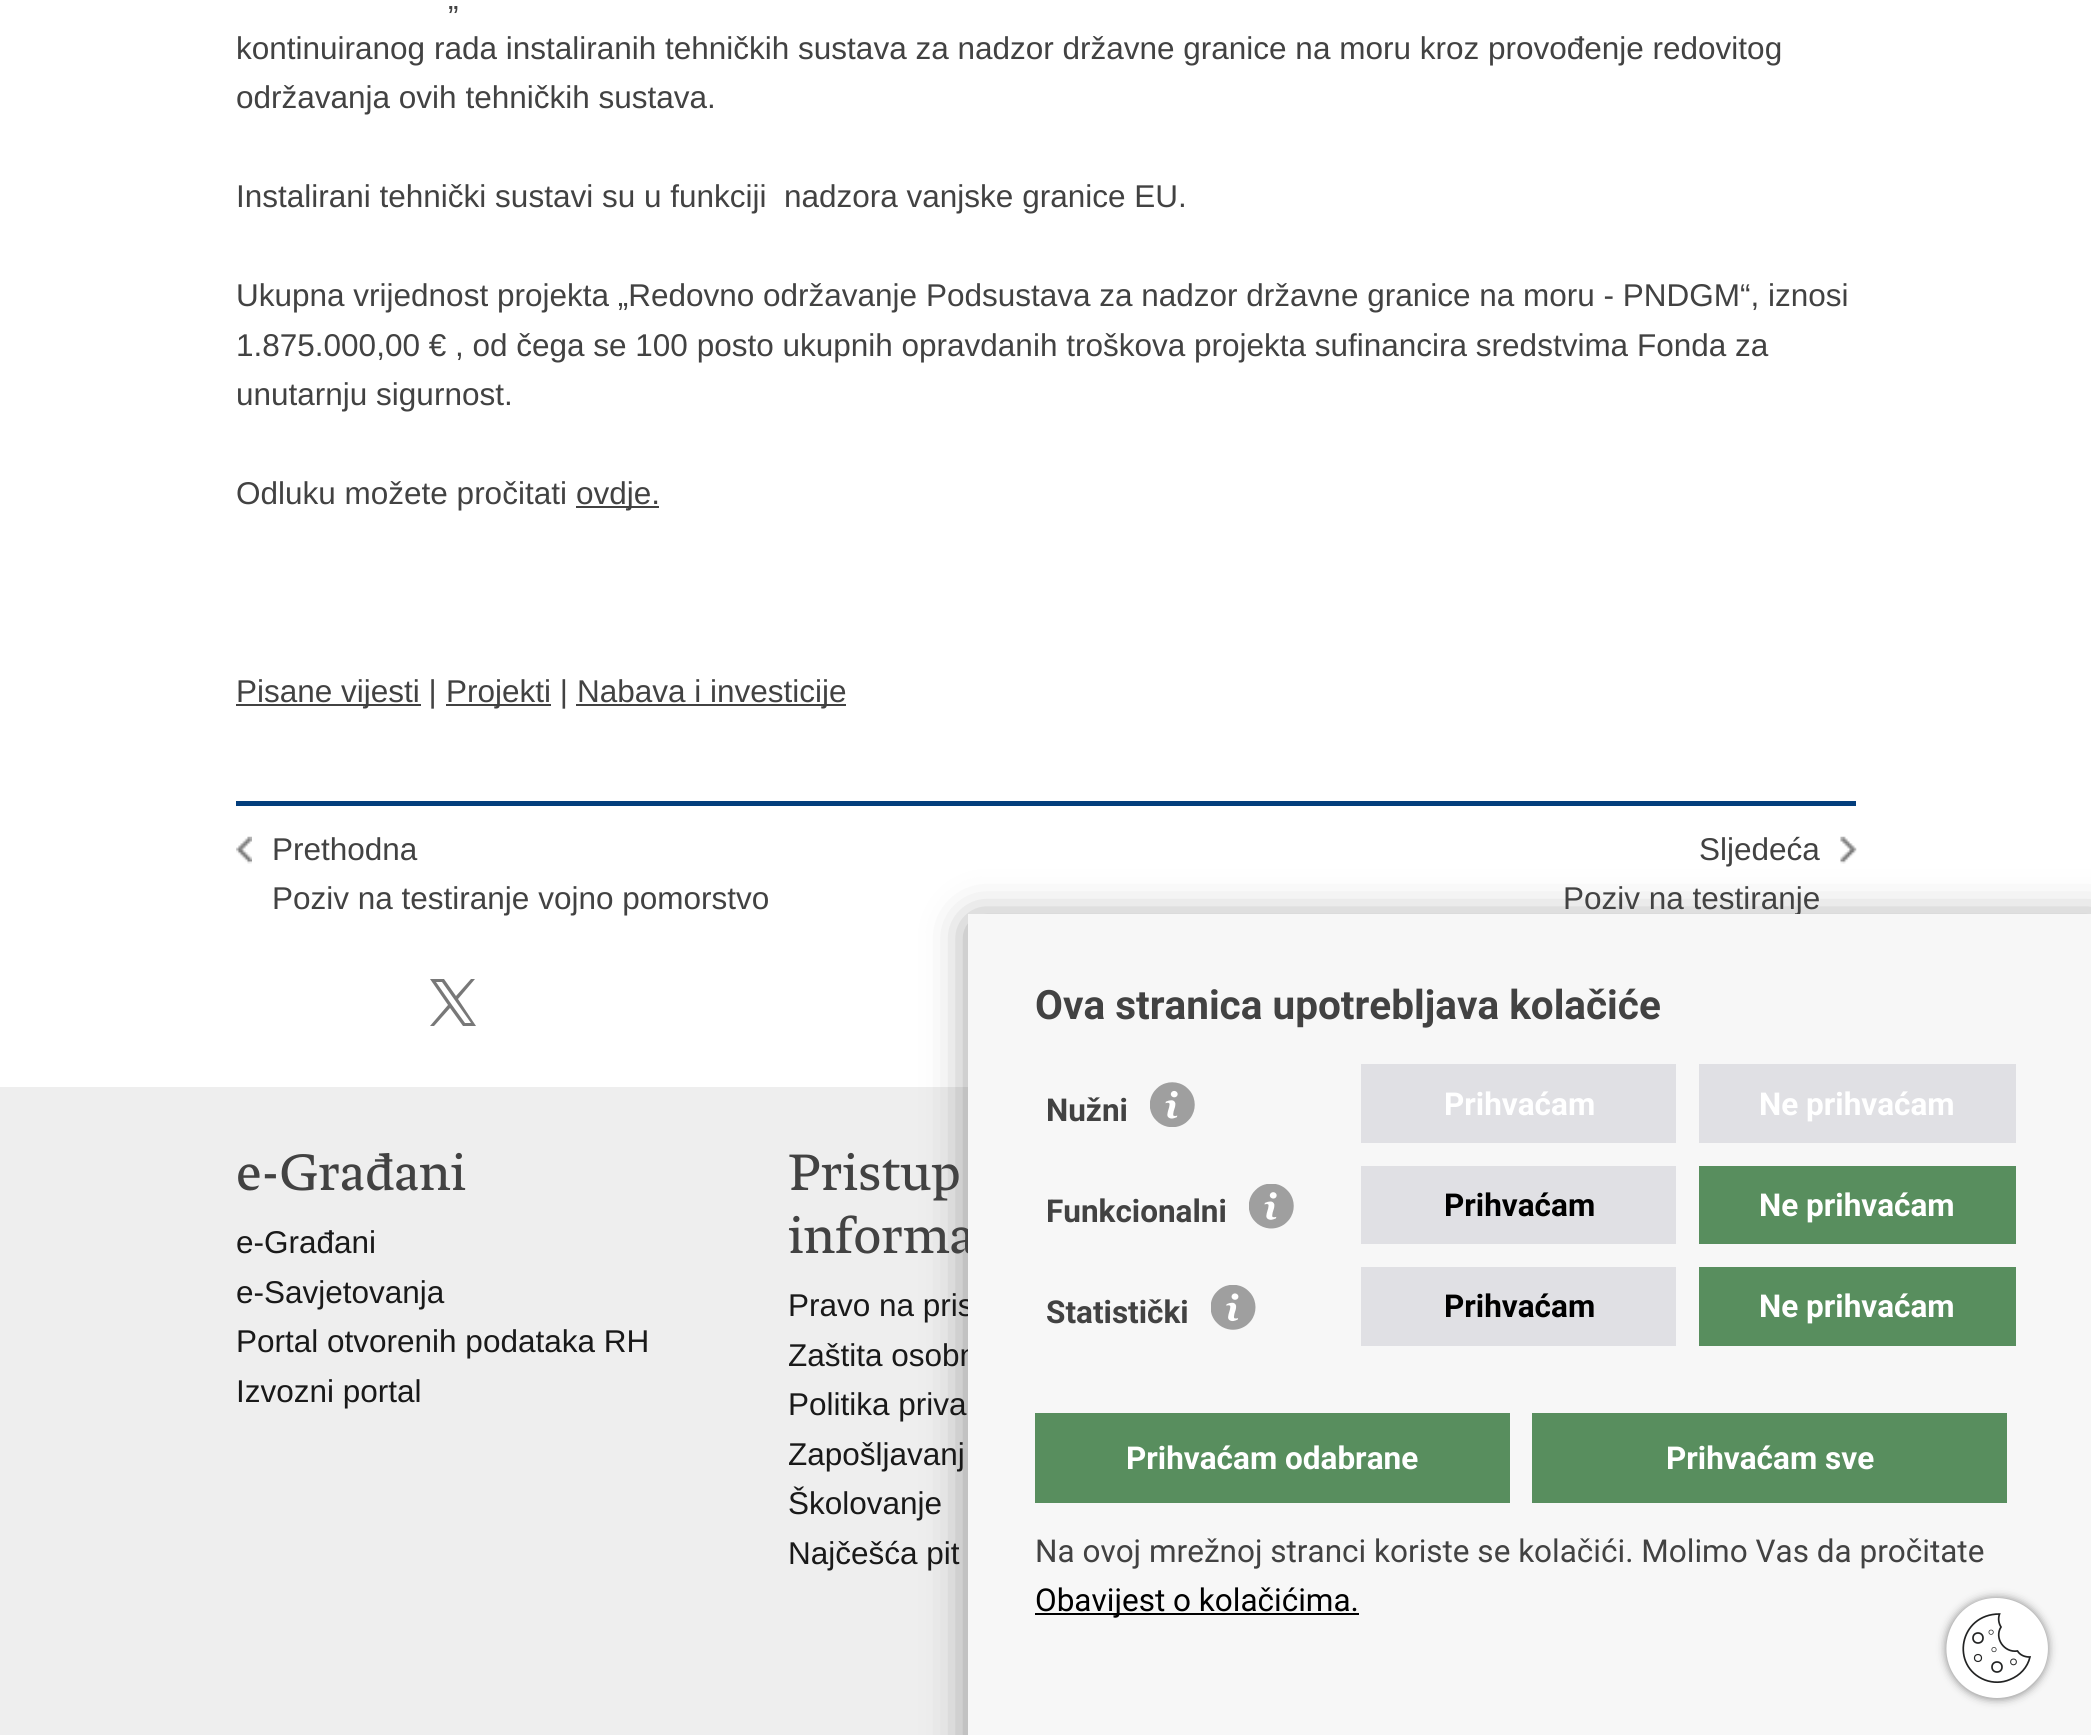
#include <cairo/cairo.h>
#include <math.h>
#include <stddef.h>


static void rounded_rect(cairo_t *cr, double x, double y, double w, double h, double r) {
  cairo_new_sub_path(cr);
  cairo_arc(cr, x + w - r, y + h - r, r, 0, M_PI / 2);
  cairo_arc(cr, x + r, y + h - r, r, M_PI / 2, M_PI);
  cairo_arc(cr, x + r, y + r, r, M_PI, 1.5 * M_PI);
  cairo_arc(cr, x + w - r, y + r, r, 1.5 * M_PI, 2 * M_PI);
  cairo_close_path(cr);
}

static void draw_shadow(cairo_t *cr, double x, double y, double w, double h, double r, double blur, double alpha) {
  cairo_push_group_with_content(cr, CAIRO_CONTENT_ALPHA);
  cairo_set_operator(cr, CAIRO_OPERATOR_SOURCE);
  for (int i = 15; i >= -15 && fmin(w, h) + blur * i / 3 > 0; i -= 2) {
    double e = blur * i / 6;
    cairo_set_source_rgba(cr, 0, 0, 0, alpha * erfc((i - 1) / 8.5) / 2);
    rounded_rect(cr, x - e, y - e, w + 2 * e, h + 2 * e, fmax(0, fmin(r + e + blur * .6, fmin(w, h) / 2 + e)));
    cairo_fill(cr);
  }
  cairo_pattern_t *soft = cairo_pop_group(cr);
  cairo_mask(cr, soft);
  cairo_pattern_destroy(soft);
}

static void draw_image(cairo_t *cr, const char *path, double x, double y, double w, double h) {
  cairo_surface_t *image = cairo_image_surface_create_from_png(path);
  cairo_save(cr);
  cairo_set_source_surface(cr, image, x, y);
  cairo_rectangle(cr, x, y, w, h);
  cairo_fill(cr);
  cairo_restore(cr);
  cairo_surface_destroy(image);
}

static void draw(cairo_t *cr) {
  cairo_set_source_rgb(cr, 1, 1, 1);
  cairo_paint(cr);
  cairo_set_source_rgb(cr, 66 / 255.0, 66 / 255.0, 66 / 255.0);
  cairo_rectangle(cr, 576, 506, 83, 2);
  cairo_fill(cr);
  cairo_rectangle(cr, 236, 704, 185, 2);
  cairo_fill(cr);
  cairo_rectangle(cr, 446, 704, 105, 2);
  cairo_fill(cr);
  cairo_rectangle(cr, 576, 704, 270, 2);
  cairo_fill(cr);
  cairo_set_source_rgb(cr, 3 / 255.0, 62 / 255.0, 124 / 255.0);
  cairo_rectangle(cr, 236, 801, 1620, 5);
  cairo_fill(cr);
  draw_image(cr, "images/1.png", 236, 836, 16, 28);
  draw_image(cr, "images/2.png", 1840, 836, 17, 28);
  cairo_set_source_rgb(cr, 120 / 255.0, 120 / 255.0, 120 / 255.0);
  cairo_new_path(cr);
  cairo_move_to(cr, 458, 999);
  cairo_line_to(cr, 475, 979);
  cairo_line_to(cr, 471, 979);
  cairo_line_to(cr, 456, 996);
  cairo_line_to(cr, 444, 979);
  cairo_line_to(cr, 430, 979);
  cairo_line_to(cr, 448, 1005);
  cairo_line_to(cr, 430, 1026);
  cairo_line_to(cr, 434, 1026);
  cairo_line_to(cr, 450, 1008);
  cairo_line_to(cr, 463, 1026);
  cairo_line_to(cr, 476, 1026);
  cairo_close_path(cr);
  cairo_move_to(cr, 452, 1005);
  cairo_line_to(cr, 436, 982);
  cairo_line_to(cr, 442, 982);
  cairo_line_to(cr, 471, 1023);
  cairo_line_to(cr, 465, 1023);
  cairo_close_path(cr);
  cairo_fill(cr);
  cairo_set_source_rgb(cr, 238 / 255.0, 238 / 255.0, 238 / 255.0);
  cairo_rectangle(cr, 0, 1087, 968, 648);
  cairo_fill(cr);
  cairo_set_source_rgb(cr, 0, 0, 0);
  draw_shadow(cr, 974, 925, 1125, 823, 0, 22.5, 0.5);
  cairo_select_font_face(cr, "Liberation Sans", CAIRO_FONT_SLANT_NORMAL, CAIRO_FONT_WEIGHT_NORMAL);
  cairo_set_font_size(cr, 31.5);
  cairo_set_source_rgb(cr, 66 / 255.0, 66 / 255.0, 66 / 255.0);
  cairo_move_to(cr, 448, 9);
  cairo_show_text(cr, "„");
  cairo_move_to(cr, 236, 59);
  cairo_show_text(cr, "kontinuiranog rada instaliranih tehničkih sustava za nadzor državne granice na moru kroz provođenje redovitog");
  cairo_move_to(cr, 236, 108);
  cairo_show_text(cr, "održavanja ovih tehničkih sustava.");
  cairo_move_to(cr, 236, 207);
  cairo_show_text(cr, "Instalirani tehnički sustavi su u funkciji  nadzora vanjske granice EU.");
  cairo_move_to(cr, 236, 306);
  cairo_show_text(cr, "Ukupna vrijednost projekta „Redovno održavanje Podsustava za nadzor državne granice na moru - PNDGM“, iznosi");
  cairo_move_to(cr, 236, 356);
  cairo_show_text(cr, "1.875.000,00 € , od čega se 100 posto ukupnih opravdanih troškova projekta sufinancira sredstvima Fonda za");
  cairo_move_to(cr, 236, 405);
  cairo_show_text(cr, "unutarnju sigurnost.");
  cairo_move_to(cr, 236, 504);
  cairo_show_text(cr, "Odluku možete pročitati");
  cairo_move_to(cr, 576, 504);
  cairo_show_text(cr, "ovdje.");
  cairo_move_to(cr, 236, 702);
  cairo_show_text(cr, "Pisane vijesti |");
  cairo_move_to(cr, 446, 702);
  cairo_show_text(cr, "Projekti |");
  cairo_move_to(cr, 577, 702);
  cairo_show_text(cr, "Nabava i investicije");
  cairo_move_to(cr, 272, 860);
  cairo_show_text(cr, "Prethodna");
  cairo_move_to(cr, 272, 909);
  cairo_show_text(cr, "Poziv na testiranje vojno pomorstvo");
  cairo_move_to(cr, 1699, 860);
  cairo_show_text(cr, "Sljedeća");
  cairo_move_to(cr, 1563, 909);
  cairo_show_text(cr, "Poziv na testiranje");
  cairo_select_font_face(cr, "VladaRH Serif", CAIRO_FONT_SLANT_NORMAL, CAIRO_FONT_WEIGHT_NORMAL);
  cairo_set_font_size(cr, 54);
  cairo_move_to(cr, 236, 1190);
  cairo_show_text(cr, "e-Građani");
  cairo_select_font_face(cr, "Liberation Sans", CAIRO_FONT_SLANT_NORMAL, CAIRO_FONT_WEIGHT_NORMAL);
  cairo_set_font_size(cr, 31.5);
  cairo_set_source_rgb(cr, 25 / 255.0, 25 / 255.0, 25 / 255.0);
  cairo_move_to(cr, 236, 1253);
  cairo_show_text(cr, "e-Građani");
  cairo_move_to(cr, 236, 1303);
  cairo_show_text(cr, "e-Savjetovanja");
  cairo_move_to(cr, 236, 1352);
  cairo_show_text(cr, "Portal otvorenih podataka RH");
  cairo_move_to(cr, 236, 1402);
  cairo_show_text(cr, "Izvozni portal");
  cairo_select_font_face(cr, "VladaRH Serif", CAIRO_FONT_SLANT_NORMAL, CAIRO_FONT_WEIGHT_NORMAL);
  cairo_set_font_size(cr, 54);
  cairo_set_source_rgb(cr, 66 / 255.0, 66 / 255.0, 66 / 255.0);
  cairo_move_to(cr, 788, 1190);
  cairo_show_text(cr, "Pristup");
  cairo_move_to(cr, 788, 1253);
  cairo_show_text(cr, "informa");
  cairo_select_font_face(cr, "Liberation Sans", CAIRO_FONT_SLANT_NORMAL, CAIRO_FONT_WEIGHT_NORMAL);
  cairo_set_font_size(cr, 31.5);
  cairo_set_source_rgb(cr, 25 / 255.0, 25 / 255.0, 25 / 255.0);
  cairo_move_to(cr, 788, 1316);
  cairo_show_text(cr, "Pravo na pris");
  cairo_move_to(cr, 788, 1366);
  cairo_show_text(cr, "Zaštita osobn");
  cairo_move_to(cr, 788, 1415);
  cairo_show_text(cr, "Politika priva");
  cairo_move_to(cr, 788, 1465);
  cairo_show_text(cr, "Zapošljavanj");
  cairo_move_to(cr, 788, 1514);
  cairo_show_text(cr, "Školovanje");
  cairo_move_to(cr, 788, 1564);
  cairo_show_text(cr, "Najčešća pit");
  cairo_set_source_rgb(cr, 247 / 255.0, 247 / 255.0, 247 / 255.0);
  cairo_rectangle(cr, 968, 914, 1123, 821);
  cairo_fill(cr);
  cairo_select_font_face(cr, "Roboto", CAIRO_FONT_SLANT_NORMAL, CAIRO_FONT_WEIGHT_BOLD);
  cairo_set_font_size(cr, 40.5);
  cairo_set_source_rgb(cr, 66 / 255.0, 66 / 255.0, 66 / 255.0);
  cairo_move_to(cr, 1035, 1019);
  cairo_show_text(cr, "Ova stranica upotrebljava kolačiće");
  cairo_set_font_size(cr, 31.5);
  cairo_move_to(cr, 1046, 1121);
  cairo_show_text(cr, "Nužni");
  draw_image(cr, "images/3.png", 1150, 1082, 45, 45);
  cairo_set_source_rgb(cr, 224 / 255.0, 224 / 255.0, 228 / 255.0);
  cairo_rectangle(cr, 1361, 1064, 315, 79);
  cairo_fill(cr);
  cairo_set_source_rgb(cr, 1, 1, 1);
  cairo_move_to(cr, 1444, 1115);
  cairo_show_text(cr, "Prihvaćam");
  cairo_set_source_rgb(cr, 224 / 255.0, 224 / 255.0, 228 / 255.0);
  cairo_rectangle(cr, 1699, 1064, 317, 79);
  cairo_fill(cr);
  cairo_set_source_rgb(cr, 1, 1, 1);
  cairo_move_to(cr, 1759, 1115);
  cairo_show_text(cr, "Ne prihvaćam");
  cairo_set_source_rgb(cr, 66 / 255.0, 66 / 255.0, 66 / 255.0);
  cairo_move_to(cr, 1046, 1222);
  cairo_show_text(cr, "Funkcionalni");
  draw_image(cr, "images/4.png", 1249, 1184, 45, 45);
  cairo_set_source_rgb(cr, 224 / 255.0, 224 / 255.0, 228 / 255.0);
  cairo_rectangle(cr, 1361, 1166, 315, 78);
  cairo_fill(cr);
  cairo_set_source_rgb(cr, 0, 0, 0);
  cairo_move_to(cr, 1444, 1216);
  cairo_show_text(cr, "Prihvaćam");
  cairo_set_source_rgb(cr, 88 / 255.0, 142 / 255.0, 94 / 255.0);
  cairo_rectangle(cr, 1699, 1166, 317, 78);
  cairo_fill(cr);
  cairo_set_source_rgb(cr, 1, 1, 1);
  cairo_move_to(cr, 1759, 1216);
  cairo_show_text(cr, "Ne prihvaćam");
  cairo_set_source_rgb(cr, 66 / 255.0, 66 / 255.0, 66 / 255.0);
  cairo_move_to(cr, 1046, 1323);
  cairo_show_text(cr, "Statistički");
  draw_image(cr, "images/5.png", 1211, 1285, 45, 45);
  cairo_set_source_rgb(cr, 224 / 255.0, 224 / 255.0, 228 / 255.0);
  cairo_rectangle(cr, 1361, 1267, 315, 79);
  cairo_fill(cr);
  cairo_set_source_rgb(cr, 0, 0, 0);
  cairo_move_to(cr, 1444, 1317);
  cairo_show_text(cr, "Prihvaćam");
  cairo_set_source_rgb(cr, 88 / 255.0, 142 / 255.0, 94 / 255.0);
  cairo_rectangle(cr, 1699, 1267, 317, 79);
  cairo_fill(cr);
  cairo_set_source_rgb(cr, 1, 1, 1);
  cairo_move_to(cr, 1759, 1317);
  cairo_show_text(cr, "Ne prihvaćam");
  cairo_set_source_rgb(cr, 88 / 255.0, 142 / 255.0, 94 / 255.0);
  cairo_rectangle(cr, 1035, 1413, 475, 90);
  cairo_fill(cr);
  cairo_set_source_rgb(cr, 1, 1, 1);
  cairo_move_to(cr, 1126, 1469);
  cairo_show_text(cr, "Prihvaćam odabrane");
  cairo_set_source_rgb(cr, 88 / 255.0, 142 / 255.0, 94 / 255.0);
  cairo_rectangle(cr, 1532, 1413, 475, 90);
  cairo_fill(cr);
  cairo_set_source_rgb(cr, 1, 1, 1);
  cairo_move_to(cr, 1666, 1469);
  cairo_show_text(cr, "Prihvaćam sve");
  cairo_select_font_face(cr, "Roboto", CAIRO_FONT_SLANT_NORMAL, CAIRO_FONT_WEIGHT_NORMAL);
  cairo_set_source_rgb(cr, 66 / 255.0, 66 / 255.0, 66 / 255.0);
  cairo_move_to(cr, 1035, 1562);
  cairo_show_text(cr, "Na ovoj mrežnoj stranci koriste se kolačići. Molimo Vas da pročitate");
  cairo_set_source_rgb(cr, 0, 0, 0);
  cairo_rectangle(cr, 1035, 1613, 324, 2);
  cairo_fill(cr);
  cairo_move_to(cr, 1035, 1611);
  cairo_show_text(cr, "Obavijest o kolačićima.");
  cairo_set_source_rgb(cr, 133 / 255.0, 133 / 255.0, 133 / 255.0);
  draw_shadow(cr, 1946, 1598, 102, 101, 50.5, 4.5, 1);
  cairo_set_source_rgb(cr, 1, 1, 1);
  cairo_new_path(cr);
  cairo_move_to(cr, 1996, 1598);
  cairo_curve_to(cr, 2033, 1598, 2058, 1634, 2044, 1668);
  cairo_curve_to(cr, 2040, 1677, 2033, 1684, 2025, 1690);
  cairo_curve_to(cr, 2017, 1695, 2007, 1698, 1997, 1698);
  cairo_curve_to(cr, 1987, 1698, 1977, 1695, 1969, 1690);
  cairo_curve_to(cr, 1927, 1662, 1948, 1598, 1996, 1598);
  cairo_close_path(cr);
  cairo_fill(cr);
  cairo_new_path(cr);
  cairo_move_to(cr, 2029.5, 1657);
  cairo_curve_to(cr, 2024.5, 1657, 2020, 1655, 2017.5, 1651);
  cairo_curve_to(cr, 2004, 1653, 1994, 1638, 2001, 1627);
  cairo_curve_to(cr, 1998.5, 1623, 1998, 1618.5, 1999.5, 1614);
  cairo_curve_to(cr, 1959, 1614, 1950, 1666.5, 1985, 1680);
  cairo_curve_to(cr, 1993, 1683, 2002, 1683, 2010, 1679.5);
  cairo_curve_to(cr, 2020, 1675.5, 2027.5, 1667.5, 2030, 1657);
  cairo_close_path(cr);
  cairo_set_source_rgb(cr, 34 / 255.0, 35 / 255.0, 35 / 255.0);
  cairo_set_line_width(cr, 1.7);
  cairo_stroke(cr);
  cairo_arc(cr, 1978, 1638, 5, 0, 2 * M_PI);
  cairo_stroke(cr);
  cairo_arc(cr, 1997, 1667, 5, 0, 2 * M_PI);
  cairo_stroke(cr);
  cairo_arc(cr, 1978, 1658, 3.5, 0, 2 * M_PI);
  cairo_set_line_width(cr, 1.2);
  cairo_stroke(cr);
  cairo_arc(cr, 2013.5, 1661.9, 2.9, 0, 2 * M_PI);
  cairo_set_line_width(cr, 1);
  cairo_stroke(cr);
  cairo_arc(cr, 1994, 1649.6, 2.2, 0, 2 * M_PI);
  cairo_set_line_width(cr, 0.7);
  cairo_stroke(cr);
  cairo_arc(cr, 1991.1, 1632.2, 2.2, 0, 2 * M_PI);
  cairo_stroke(cr);
}

int main(void) {
  cairo_surface_t *surface = cairo_image_surface_create(CAIRO_FORMAT_RGB24, 2091, 1735);
  cairo_t *cr = cairo_create(surface);
  cairo_font_options_t *options = cairo_font_options_create();
  cairo_font_options_set_hint_metrics(options, CAIRO_HINT_METRICS_OFF);
  cairo_font_options_set_hint_style(options, CAIRO_HINT_STYLE_NONE);
  cairo_set_font_options(cr, options);
  cairo_set_miter_limit(cr, 4);
  draw(cr);
  cairo_surface_write_to_png(surface, "out.png");
  cairo_font_options_destroy(options);
  cairo_destroy(cr);
  cairo_surface_destroy(surface);
  return 0;
}
